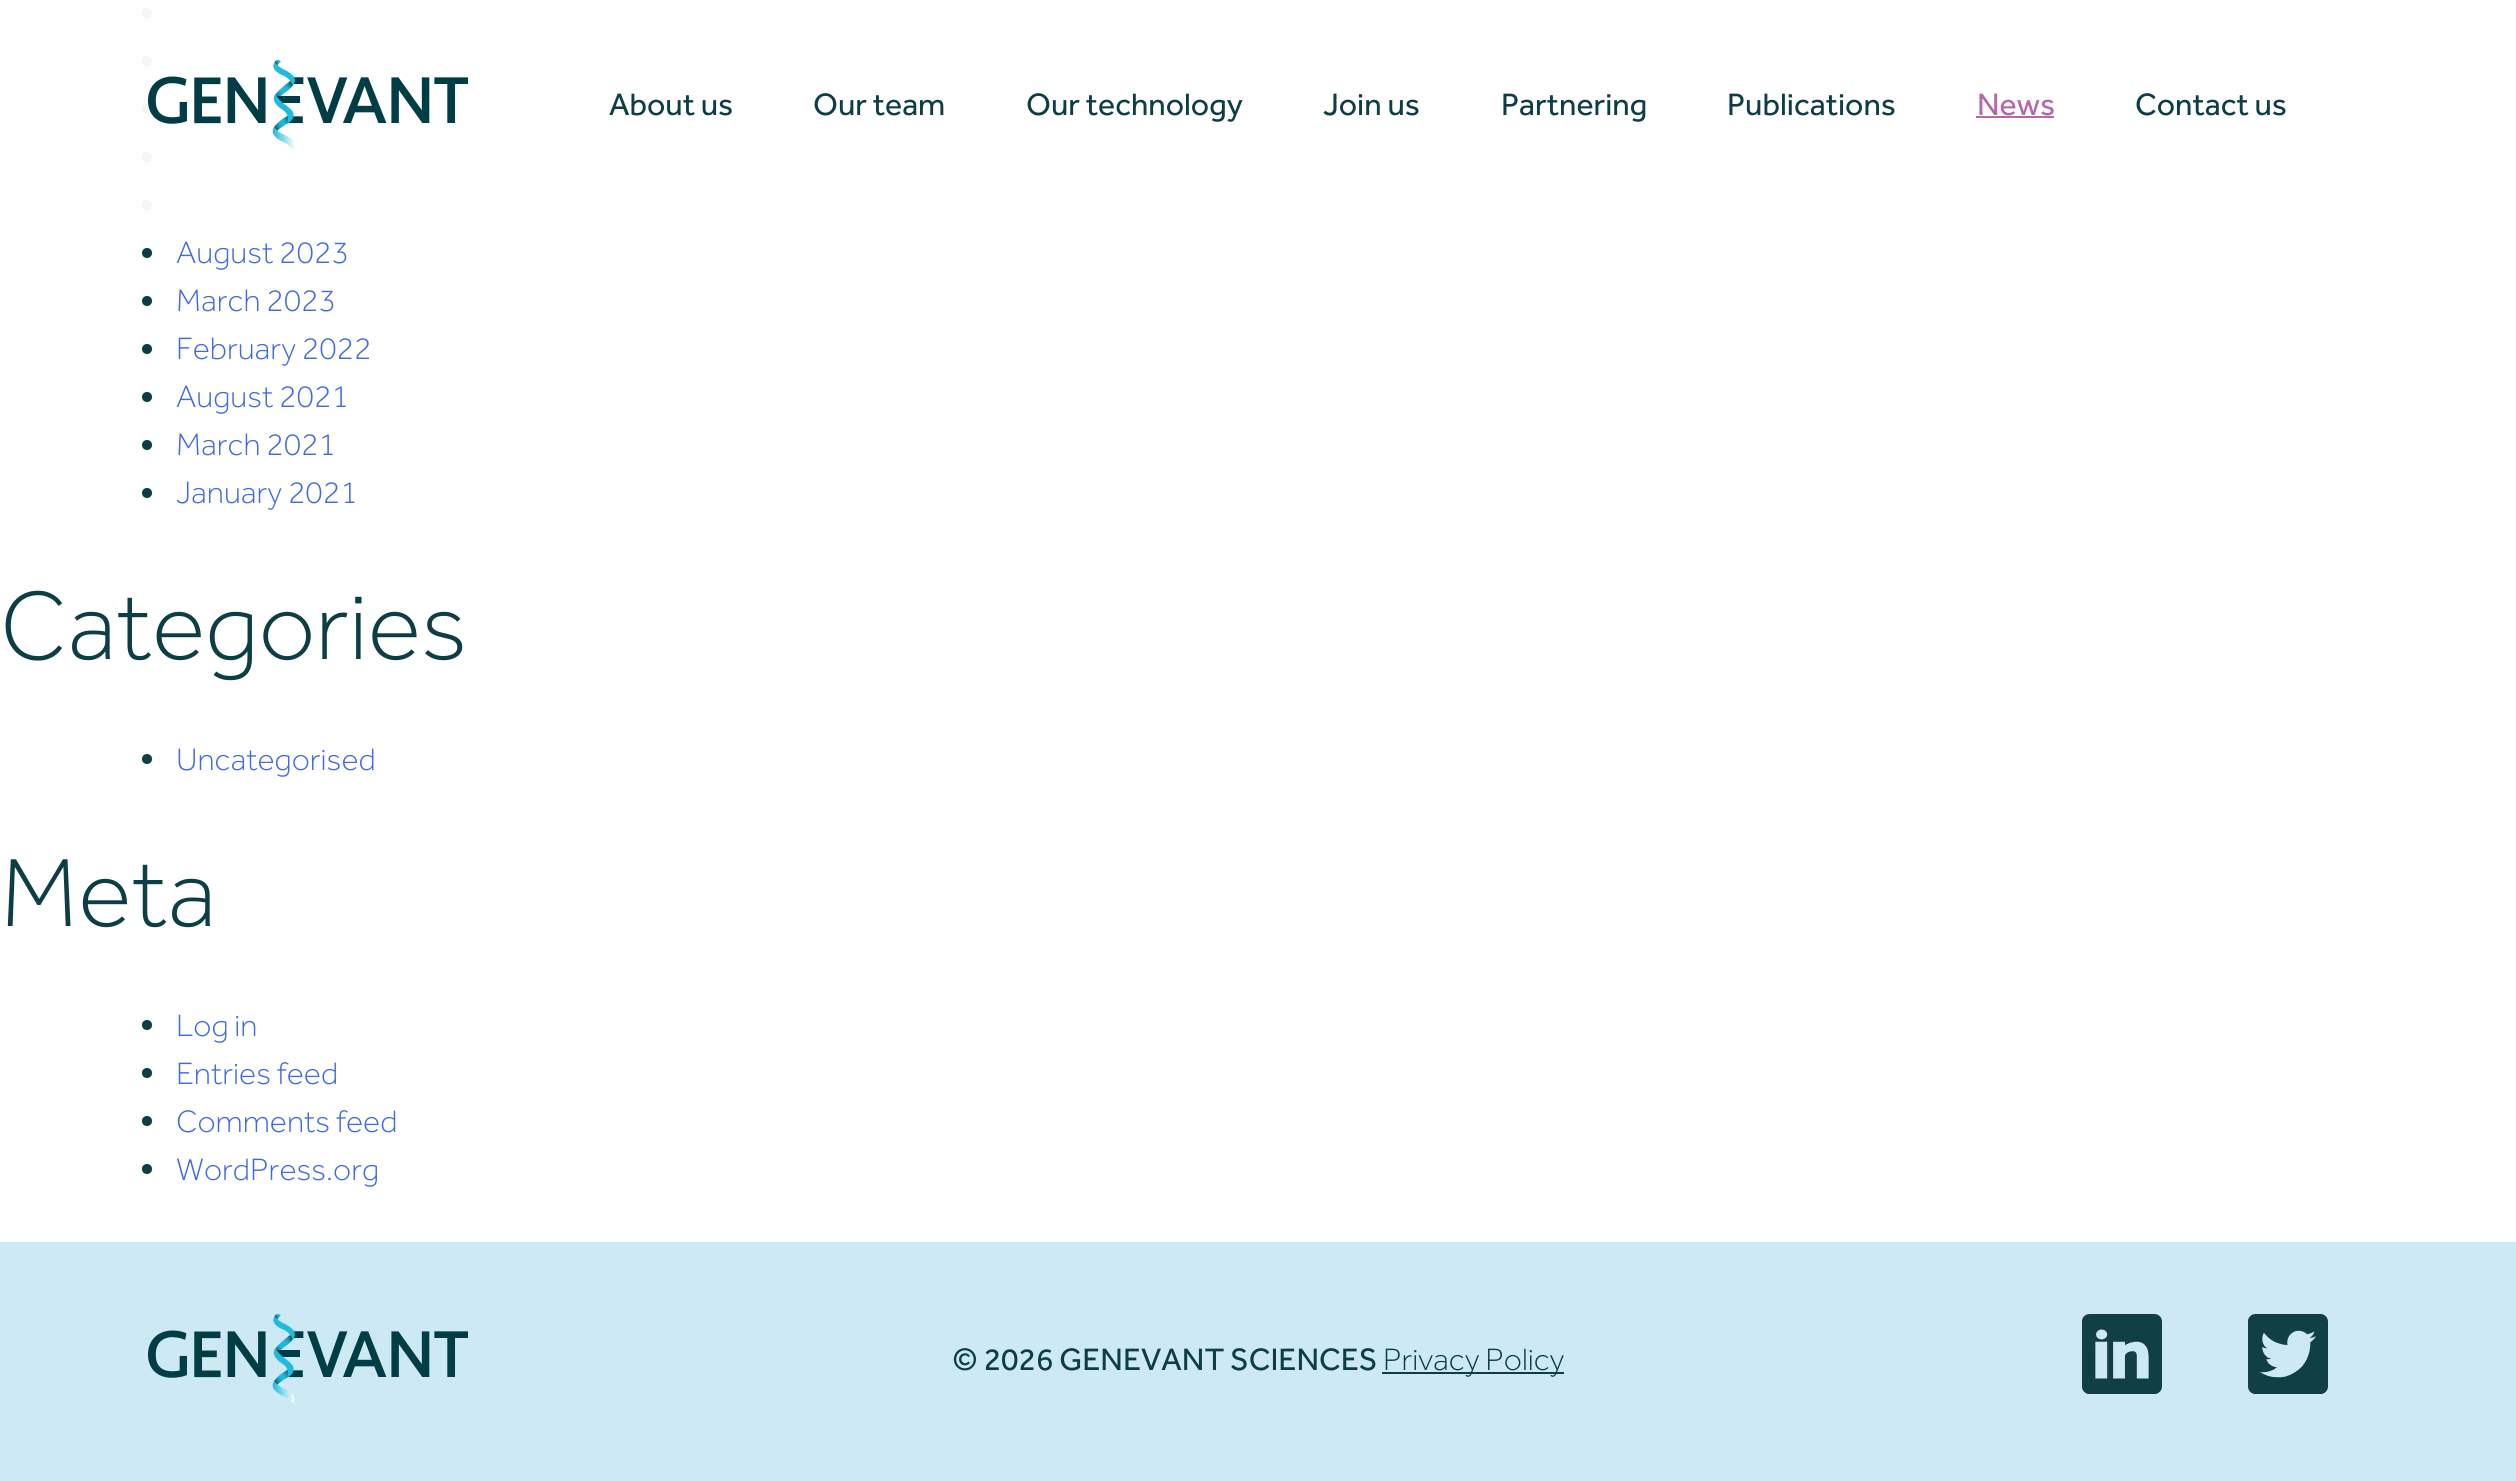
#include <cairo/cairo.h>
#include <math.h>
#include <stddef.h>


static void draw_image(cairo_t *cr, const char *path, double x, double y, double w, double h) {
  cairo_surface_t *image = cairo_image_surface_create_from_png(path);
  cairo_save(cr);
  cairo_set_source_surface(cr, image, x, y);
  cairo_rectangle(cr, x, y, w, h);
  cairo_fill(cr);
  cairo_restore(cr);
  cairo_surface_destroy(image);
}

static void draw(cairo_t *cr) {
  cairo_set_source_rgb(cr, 1, 1, 1);
  cairo_paint(cr);
  cairo_set_source_rgb(cr, 13 / 255.0, 62 / 255.0, 70 / 255.0);
  cairo_arc(cr, 147, 13, 5, 0, 2 * M_PI);
  cairo_fill(cr);
  cairo_arc(cr, 147, 61, 5, 0, 2 * M_PI);
  cairo_fill(cr);
  cairo_arc(cr, 147, 109, 5, 0, 2 * M_PI);
  cairo_fill(cr);
  cairo_arc(cr, 147, 157, 5, 0, 2 * M_PI);
  cairo_fill(cr);
  cairo_arc(cr, 147, 205, 5, 0, 2 * M_PI);
  cairo_fill(cr);
  cairo_set_source_rgba(cr, 1, 1, 1, 0.95);
  cairo_rectangle(cr, 142, 8, 10, 202);
  cairo_fill(cr);
  draw_image(cr, "images/1.png", 148, 60, 320, 90);
  cairo_set_source_rgb(cr, 182 / 255.0, 104 / 255.0, 167 / 255.0);
  cairo_rectangle(cr, 1976, 116, 78, 2);
  cairo_fill(cr);
  cairo_set_source_rgb(cr, 13 / 255.0, 62 / 255.0, 70 / 255.0);
  cairo_arc(cr, 147, 253, 5, 0, 2 * M_PI);
  cairo_fill(cr);
  cairo_arc(cr, 147, 301, 5, 0, 2 * M_PI);
  cairo_fill(cr);
  cairo_arc(cr, 147, 349, 5, 0, 2 * M_PI);
  cairo_fill(cr);
  cairo_arc(cr, 147, 397, 5, 0, 2 * M_PI);
  cairo_fill(cr);
  cairo_arc(cr, 147, 445, 5, 0, 2 * M_PI);
  cairo_fill(cr);
  cairo_arc(cr, 147, 493, 5, 0, 2 * M_PI);
  cairo_fill(cr);
  cairo_arc(cr, 147, 759, 5, 0, 2 * M_PI);
  cairo_fill(cr);
  cairo_arc(cr, 147, 1025, 5, 0, 2 * M_PI);
  cairo_fill(cr);
  cairo_arc(cr, 147, 1073, 5, 0, 2 * M_PI);
  cairo_fill(cr);
  cairo_arc(cr, 147, 1121, 5, 0, 2 * M_PI);
  cairo_fill(cr);
  cairo_arc(cr, 147, 1169, 5, 0, 2 * M_PI);
  cairo_fill(cr);
  cairo_set_source_rgb(cr, 205 / 255.0, 233 / 255.0, 243 / 255.0);
  cairo_rectangle(cr, 0, 1242, 2516, 239);
  cairo_fill(cr);
  draw_image(cr, "images/2.png", 148, 1314, 320, 90);
  cairo_set_source_rgb(cr, 13 / 255.0, 62 / 255.0, 70 / 255.0);
  cairo_rectangle(cr, 1382, 1372, 182, 2);
  cairo_fill(cr);
  draw_image(cr, "images/3.png", 2082, 1314, 80, 80);
  draw_image(cr, "images/4.png", 2248, 1314, 80, 80);
  cairo_select_font_face(cr, "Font", CAIRO_FONT_SLANT_NORMAL, CAIRO_FONT_WEIGHT_NORMAL);
  cairo_set_font_size(cr, 32);
  cairo_move_to(cr, 609, 115);
  cairo_show_text(cr, "About us");
  cairo_move_to(cr, 813, 115);
  cairo_show_text(cr, "Our team");
  cairo_move_to(cr, 1026, 115);
  cairo_show_text(cr, "Our technology");
  cairo_move_to(cr, 1323, 115);
  cairo_show_text(cr, "Join us");
  cairo_move_to(cr, 1501, 115);
  cairo_show_text(cr, "Partnering");
  cairo_move_to(cr, 1727, 115);
  cairo_show_text(cr, "Publications");
  cairo_set_source_rgb(cr, 182 / 255.0, 104 / 255.0, 167 / 255.0);
  cairo_move_to(cr, 1977, 115);
  cairo_show_text(cr, "News");
  cairo_set_source_rgb(cr, 13 / 255.0, 62 / 255.0, 70 / 255.0);
  cairo_move_to(cr, 2135, 115);
  cairo_show_text(cr, "Contact us");
  cairo_select_font_face(cr, "Font Light", CAIRO_FONT_SLANT_NORMAL, CAIRO_FONT_WEIGHT_NORMAL);
  cairo_set_source_rgb(cr, 65 / 255.0, 105 / 255.0, 225 / 255.0);
  cairo_move_to(cr, 176, 263);
  cairo_show_text(cr, "August 2023");
  cairo_move_to(cr, 176, 311);
  cairo_show_text(cr, "March 2023");
  cairo_move_to(cr, 176, 359);
  cairo_show_text(cr, "February 2022");
  cairo_move_to(cr, 176, 407);
  cairo_show_text(cr, "August 2021");
  cairo_move_to(cr, 176, 455);
  cairo_show_text(cr, "March 2021");
  cairo_move_to(cr, 176, 503);
  cairo_show_text(cr, "January 2021");
  cairo_set_font_size(cr, 100);
  cairo_set_source_rgb(cr, 13 / 255.0, 62 / 255.0, 70 / 255.0);
  cairo_move_to(cr, 0, 659);
  cairo_show_text(cr, "Categories");
  cairo_set_font_size(cr, 32);
  cairo_set_source_rgb(cr, 65 / 255.0, 105 / 255.0, 225 / 255.0);
  cairo_move_to(cr, 176, 770);
  cairo_show_text(cr, "Uncategorised");
  cairo_set_font_size(cr, 100);
  cairo_set_source_rgb(cr, 13 / 255.0, 62 / 255.0, 70 / 255.0);
  cairo_move_to(cr, 0, 926);
  cairo_show_text(cr, "Meta");
  cairo_set_font_size(cr, 32);
  cairo_set_source_rgb(cr, 65 / 255.0, 105 / 255.0, 225 / 255.0);
  cairo_move_to(cr, 176, 1036);
  cairo_show_text(cr, "Log in");
  cairo_move_to(cr, 176, 1084);
  cairo_show_text(cr, "Entries feed");
  cairo_move_to(cr, 176, 1132);
  cairo_show_text(cr, "Comments feed");
  cairo_move_to(cr, 176, 1180);
  cairo_show_text(cr, "WordPress.org");
  cairo_select_font_face(cr, "Font", CAIRO_FONT_SLANT_NORMAL, CAIRO_FONT_WEIGHT_NORMAL);
  cairo_set_source_rgb(cr, 13 / 255.0, 62 / 255.0, 70 / 255.0);
  cairo_move_to(cr, 952, 1370);
  cairo_show_text(cr, "© 2026 GENEVANT SCIENCES");
  cairo_select_font_face(cr, "Font Light", CAIRO_FONT_SLANT_NORMAL, CAIRO_FONT_WEIGHT_NORMAL);
  cairo_move_to(cr, 1383, 1370);
  cairo_show_text(cr, "Privacy Policy");
}

int main(void) {
  cairo_surface_t *surface = cairo_image_surface_create(CAIRO_FORMAT_RGB24, 2516, 1481);
  cairo_t *cr = cairo_create(surface);
  cairo_font_options_t *options = cairo_font_options_create();
  cairo_font_options_set_hint_metrics(options, CAIRO_HINT_METRICS_OFF);
  cairo_font_options_set_hint_style(options, CAIRO_HINT_STYLE_NONE);
  cairo_set_font_options(cr, options);
  cairo_set_miter_limit(cr, 4);
  draw(cr);
  cairo_surface_write_to_png(surface, "out.png");
  cairo_font_options_destroy(options);
  cairo_destroy(cr);
  cairo_surface_destroy(surface);
  return 0;
}
